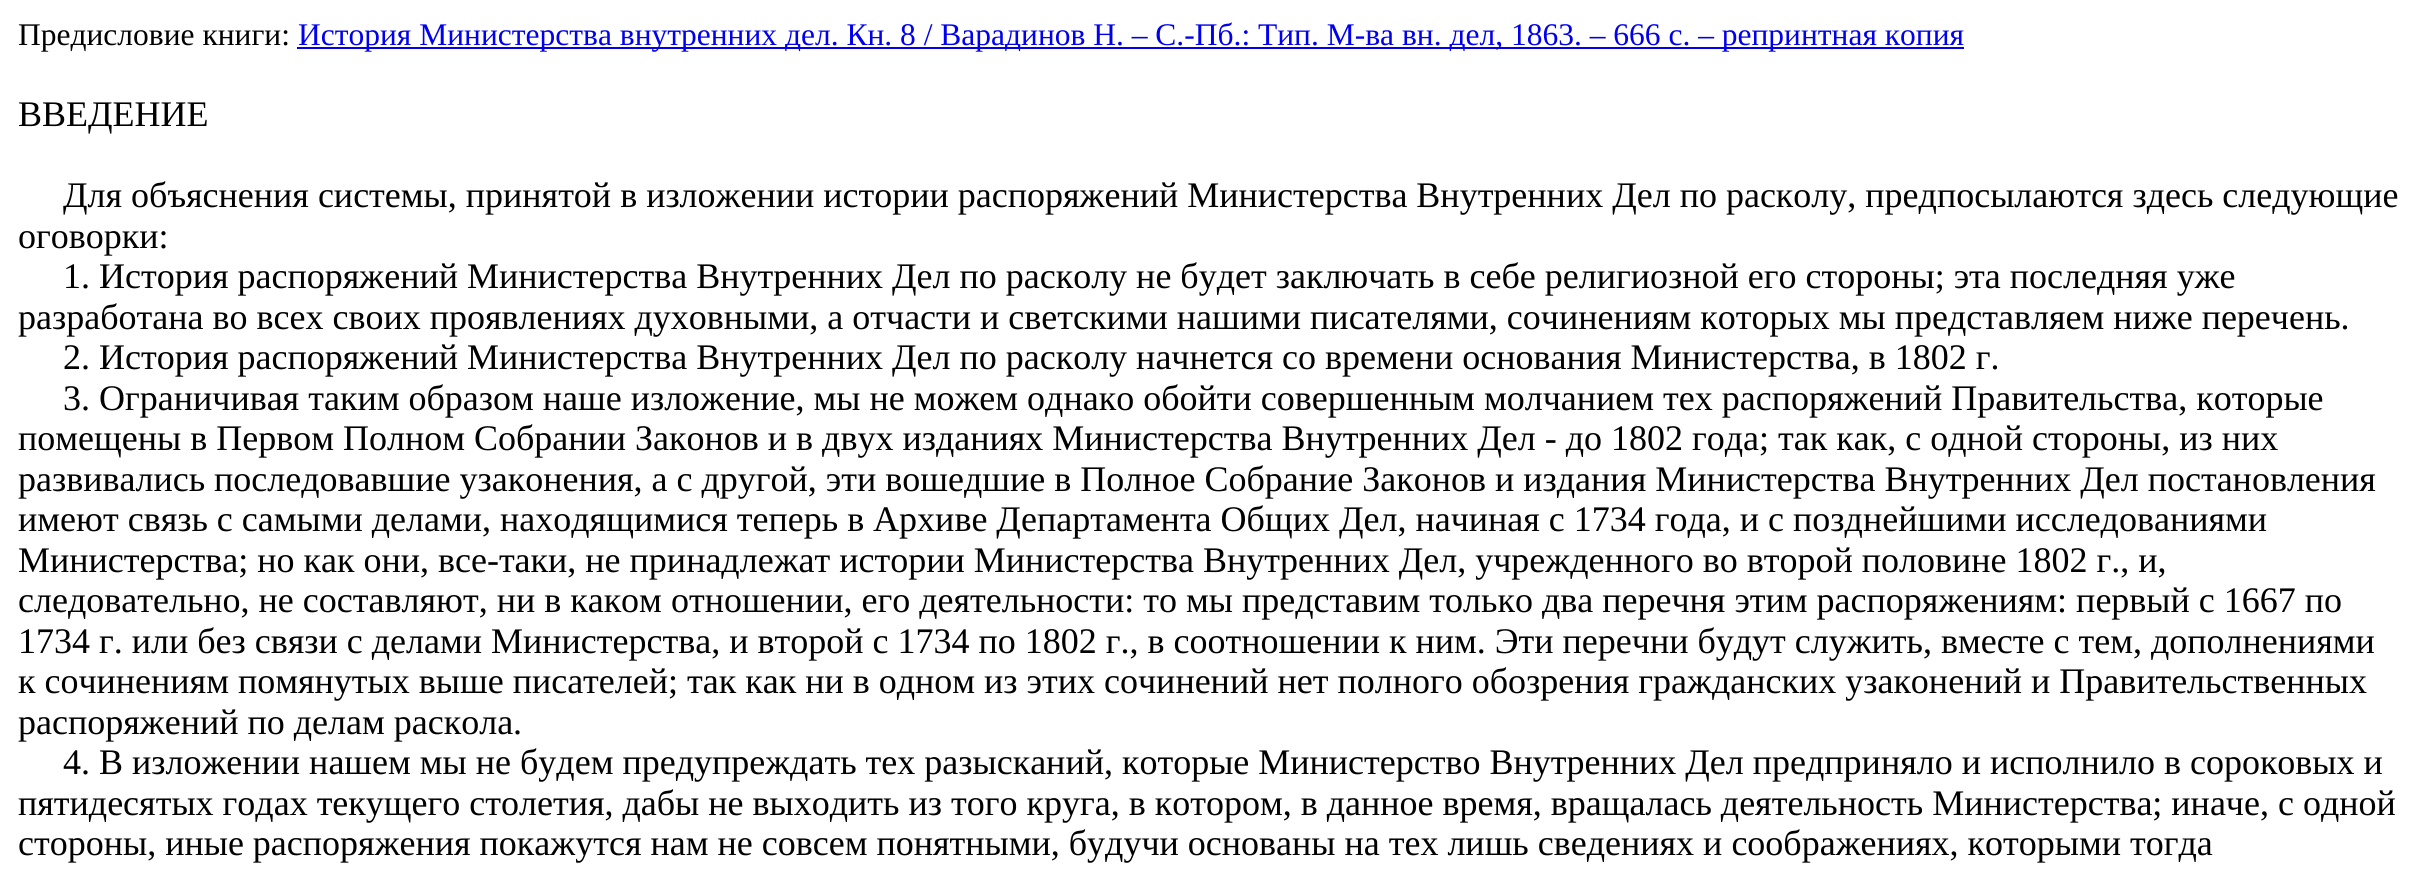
#include <cairo/cairo.h>
#include <math.h>
#include <stddef.h>


static void draw(cairo_t *cr) {
  cairo_set_source_rgb(cr, 1, 1, 1);
  cairo_paint(cr);
  cairo_set_source_rgb(cr, 0, 0, 238 / 255.0);
  cairo_rectangle(cr, 297, 47, 1667, 2);
  cairo_fill(cr);
  cairo_select_font_face(cr, "Liberation Serif", CAIRO_FONT_SLANT_NORMAL, CAIRO_FONT_WEIGHT_NORMAL);
  cairo_set_font_size(cr, 31.5);
  cairo_set_source_rgb(cr, 0, 0, 0);
  cairo_move_to(cr, 18, 45);
  cairo_show_text(cr, "Предисловие книги:");
  cairo_set_source_rgb(cr, 0, 0, 238 / 255.0);
  cairo_move_to(cr, 298, 45);
  cairo_show_text(cr, "История Министерства внутренних дел. Кн. 8 / Варадинов Н. – С.-Пб.: Тип. М-ва вн. дел, 1863. – 666 c. – репринтная копия");
  cairo_set_font_size(cr, 36);
  cairo_set_source_rgb(cr, 0, 0, 0);
  cairo_move_to(cr, 18, 126);
  cairo_show_text(cr, "ВВЕДЕНИЕ");
  cairo_move_to(cr, 63, 207);
  cairo_show_text(cr, "Для объяснения системы, принятой в изложении истории распоряжений Министерства Внутренних Дел по расколу, предпосылаются здесь следующие");
  cairo_move_to(cr, 18, 248);
  cairo_show_text(cr, "оговорки:");
  cairo_move_to(cr, 63, 288);
  cairo_show_text(cr, "1. История распоряжений Министерства Внутренних Дел по расколу не будет заключать в себе религиозной его стороны; эта последняя уже");
  cairo_move_to(cr, 18, 329);
  cairo_show_text(cr, "разработана во всех своих проявлениях духовными, а отчасти и светскими нашими писателями, сочинениям которых мы представляем ниже перечень.");
  cairo_move_to(cr, 63, 369);
  cairo_show_text(cr, "2. История распоряжений Министерства Внутренних Дел по расколу начнется со времени основания Министерства, в 1802 г.");
  cairo_move_to(cr, 63, 410);
  cairo_show_text(cr, "3. Ограничивая таким образом наше изложение, мы не можем однако обойти совершенным молчанием тех распоряжений Правительства, которые");
  cairo_move_to(cr, 18, 450);
  cairo_show_text(cr, "помещены в Первом Полном Собрании Законов и в двух изданиях Министерства Внутренних Дел - до 1802 года; так как, с одной стороны, из них");
  cairo_move_to(cr, 18, 491);
  cairo_show_text(cr, "развивались последовавшие узаконения, а с другой, эти вошедшие в Полное Собрание Законов и издания Министерства Внутренних Дел постановления");
  cairo_move_to(cr, 18, 531);
  cairo_show_text(cr, "имеют связь с самыми делами, находящимися теперь в Архиве Департамента Общих Дел, начиная с 1734 года, и с позднейшими исследованиями");
  cairo_move_to(cr, 18, 572);
  cairo_show_text(cr, "Министерства; но как они, все-таки, не принадлежат истории Министерства Внутренних Дел, учрежденного во второй половине 1802 г., и,");
  cairo_move_to(cr, 18, 612);
  cairo_show_text(cr, "следовательно, не составляют, ни в каком отношении, его деятельности: то мы представим только два перечня этим распоряжениям: первый с 1667 по");
  cairo_move_to(cr, 18, 653);
  cairo_show_text(cr, "1734 г. или без связи с делами Министерства, и второй с 1734 по 1802 г., в соотношении к ним. Эти перечни будут служить, вместе с тем, дополнениями");
  cairo_move_to(cr, 18, 693);
  cairo_show_text(cr, "к сочинениям помянутых выше писателей; так как ни в одном из этих сочинений нет полного обозрения гражданских узаконений и Правительственных");
  cairo_move_to(cr, 18, 734);
  cairo_show_text(cr, "распоряжений по делам раскола.");
  cairo_move_to(cr, 63, 774);
  cairo_show_text(cr, "4. В изложении нашем мы не будем предупреждать тех разысканий, которые Министерство Внутренних Дел предприняло и исполнило в сороковых и");
  cairo_move_to(cr, 18, 815);
  cairo_show_text(cr, "пятидесятых годах текущего столетия, дабы не выходить из того круга, в котором, в данное время, вращалась деятельность Министерства; иначе, с одной");
  cairo_move_to(cr, 18, 855);
  cairo_show_text(cr, "стороны, иные распоряжения покажутся нам не совсем понятными, будучи основаны на тех лишь сведениях и соображениях, которыми тогда");
}

int main(void) {
  cairo_surface_t *surface = cairo_image_surface_create(CAIRO_FORMAT_RGB24, 2415, 871);
  cairo_t *cr = cairo_create(surface);
  cairo_font_options_t *options = cairo_font_options_create();
  cairo_font_options_set_hint_metrics(options, CAIRO_HINT_METRICS_OFF);
  cairo_font_options_set_hint_style(options, CAIRO_HINT_STYLE_NONE);
  cairo_set_font_options(cr, options);
  cairo_set_miter_limit(cr, 4);
  draw(cr);
  cairo_surface_write_to_png(surface, "out.png");
  cairo_font_options_destroy(options);
  cairo_destroy(cr);
  cairo_surface_destroy(surface);
  return 0;
}
